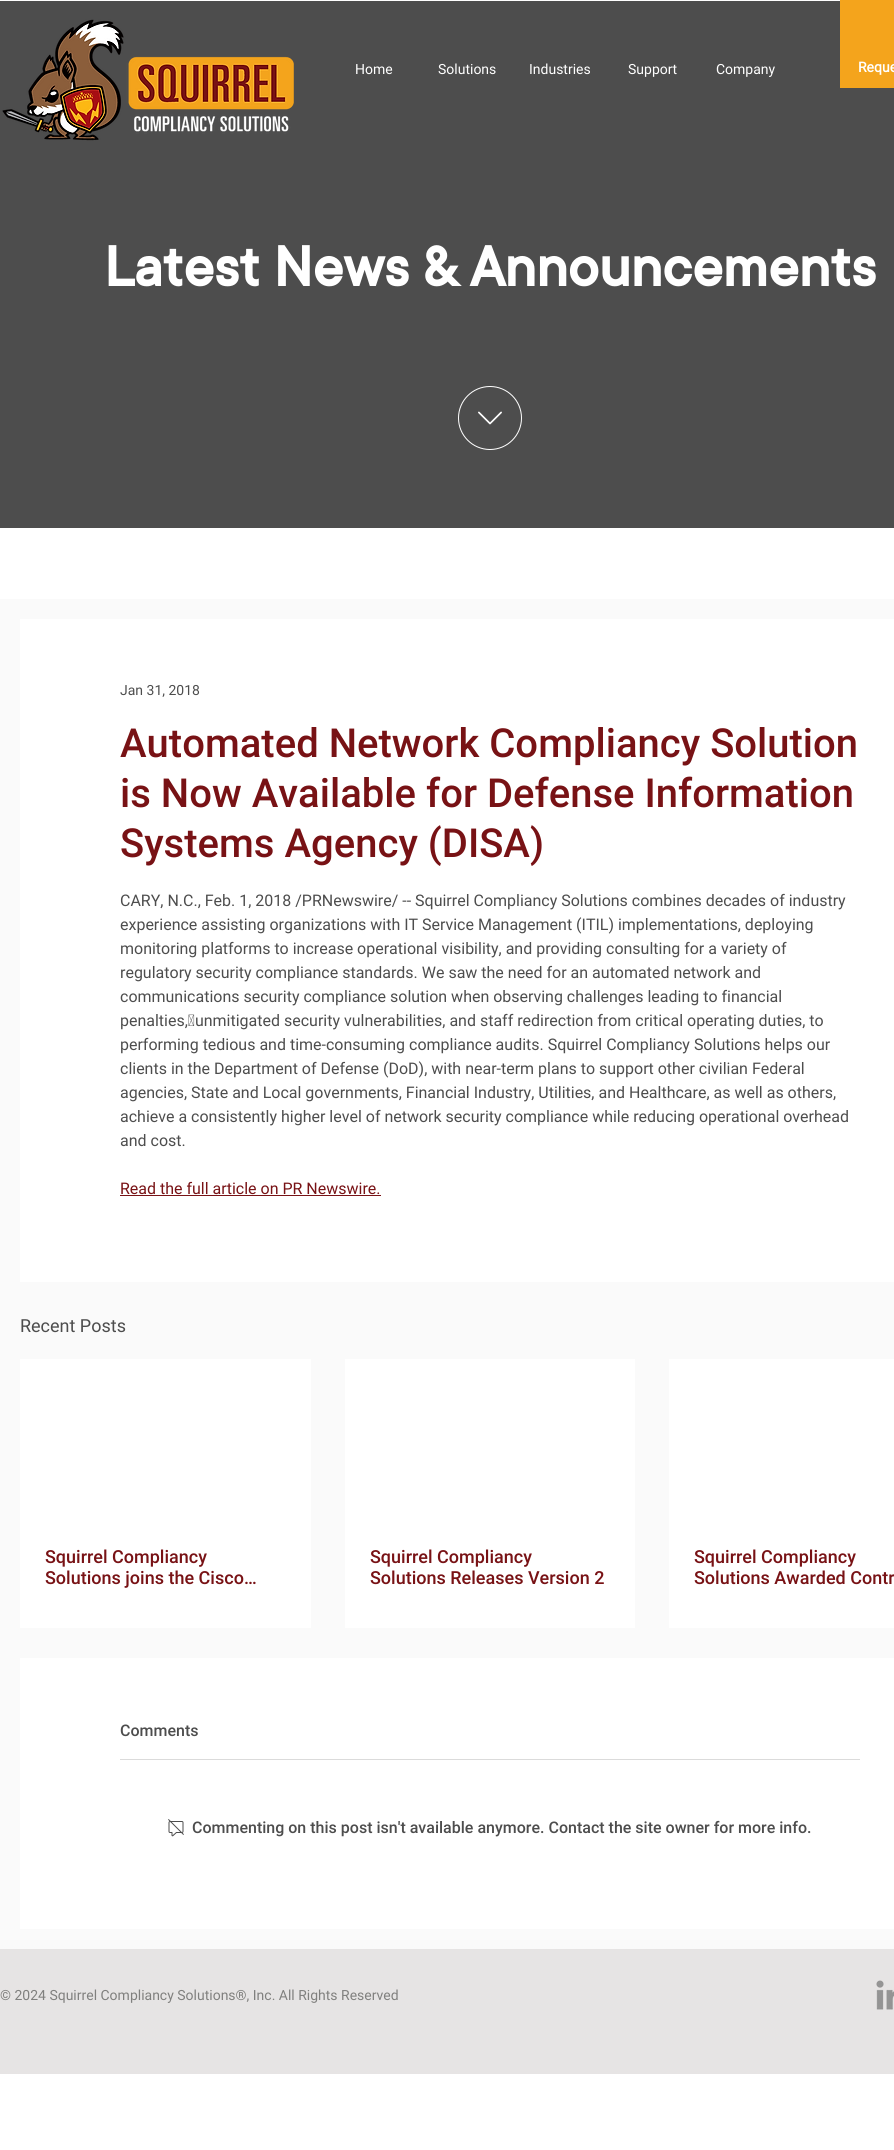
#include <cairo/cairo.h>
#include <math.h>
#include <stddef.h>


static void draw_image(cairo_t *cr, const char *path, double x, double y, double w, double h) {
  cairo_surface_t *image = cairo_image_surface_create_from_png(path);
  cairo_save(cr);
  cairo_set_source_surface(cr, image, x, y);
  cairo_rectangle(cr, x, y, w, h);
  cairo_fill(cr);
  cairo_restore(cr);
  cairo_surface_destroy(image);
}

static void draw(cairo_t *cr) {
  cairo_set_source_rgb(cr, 1, 1, 1);
  cairo_paint(cr);
  cairo_set_source_rgb(cr, 77 / 255.0, 77 / 255.0, 77 / 255.0);
  cairo_rectangle(cr, 0, 1, 894, 527);
  cairo_fill(cr);
  draw_image(cr, "images/1.png", 2, 19, 292, 122);
  cairo_set_source_rgb(cr, 244 / 255.0, 164 / 255.0, 28 / 255.0);
  cairo_rectangle(cr, 840, 0, 54, 88);
  cairo_fill(cr);
  cairo_arc(cr, 490, 418, 31.5, 0, 2 * M_PI);
  cairo_set_source_rgb(cr, 1, 1, 1);
  cairo_set_line_width(cr, 1);
  cairo_stroke(cr);
  draw_image(cr, "images/2.png", 478, 411, 24, 14);
  cairo_set_source_rgb(cr, 250 / 255.0, 250 / 255.0, 250 / 255.0);
  cairo_rectangle(cr, 0, 599, 894, 1350);
  cairo_fill(cr);
  cairo_set_source_rgb(cr, 1, 1, 1);
  cairo_rectangle(cr, 20, 619, 874, 663);
  cairo_fill(cr);
  cairo_set_source_rgb(cr, 120 / 255.0, 18 / 255.0, 21 / 255.0);
  cairo_rectangle(cr, 120, 1195, 261, 1);
  cairo_fill(cr);
  cairo_set_source_rgb(cr, 1, 1, 1);
  cairo_rectangle(cr, 20, 1359, 291, 269);
  cairo_fill(cr);
  cairo_rectangle(cr, 345, 1359, 290, 269);
  cairo_fill(cr);
  cairo_rectangle(cr, 669, 1359, 225, 269);
  cairo_fill(cr);
  cairo_rectangle(cr, 20, 1658, 874, 271);
  cairo_fill(cr);
  cairo_set_source_rgb(cr, 219 / 255.0, 219 / 255.0, 219 / 255.0);
  cairo_rectangle(cr, 120, 1759, 740, 1);
  cairo_fill(cr);
  draw_image(cr, "images/3.png", 168, 1819, 16, 18);
  cairo_set_source_rgb(cr, 230 / 255.0, 228 / 255.0, 228 / 255.0);
  cairo_rectangle(cr, 0, 1949, 894, 125);
  cairo_fill(cr);
  draw_image(cr, "images/4.png", 876, 1980, 18, 30);
  cairo_select_font_face(cr, "Roboto", CAIRO_FONT_SLANT_NORMAL, CAIRO_FONT_WEIGHT_NORMAL);
  cairo_set_font_size(cr, 14);
  cairo_set_source_rgb(cr, 1, 1, 1);
  cairo_move_to(cr, 355, 74);
  cairo_show_text(cr, "Home");
  cairo_move_to(cr, 438, 74);
  cairo_show_text(cr, "Solutions");
  cairo_move_to(cr, 529, 74);
  cairo_show_text(cr, "Industries");
  cairo_move_to(cr, 628, 74);
  cairo_show_text(cr, "Support");
  cairo_move_to(cr, 716, 74);
  cairo_show_text(cr, "Company");
  cairo_select_font_face(cr, "Roboto", CAIRO_FONT_SLANT_NORMAL, CAIRO_FONT_WEIGHT_BOLD);
  cairo_move_to(cr, 858, 72);
  cairo_show_text(cr, "Reque");
  cairo_select_font_face(cr, "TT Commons", CAIRO_FONT_SLANT_NORMAL, CAIRO_FONT_WEIGHT_BOLD);
  cairo_set_font_size(cr, 62);
  cairo_move_to(cr, 104, 286);
  cairo_show_text(cr, "Latest News & Announcements");
  cairo_select_font_face(cr, "Roboto", CAIRO_FONT_SLANT_NORMAL, CAIRO_FONT_WEIGHT_NORMAL);
  cairo_set_font_size(cr, 14);
  cairo_set_source_rgb(cr, 77 / 255.0, 77 / 255.0, 77 / 255.0);
  cairo_move_to(cr, 120, 695);
  cairo_show_text(cr, "Jan 31, 2018");
  cairo_select_font_face(cr, "Roboto Medium", CAIRO_FONT_SLANT_NORMAL, CAIRO_FONT_WEIGHT_NORMAL);
  cairo_set_font_size(cr, 40);
  cairo_set_source_rgb(cr, 120 / 255.0, 18 / 255.0, 21 / 255.0);
  cairo_move_to(cr, 120, 757);
  cairo_show_text(cr, "Automated Network Compliancy Solution");
  cairo_move_to(cr, 120, 807);
  cairo_show_text(cr, "is Now Available for Defense Information");
  cairo_move_to(cr, 120, 857);
  cairo_show_text(cr, "Systems Agency (DISA)");
  cairo_select_font_face(cr, "Roboto", CAIRO_FONT_SLANT_NORMAL, CAIRO_FONT_WEIGHT_NORMAL);
  cairo_set_font_size(cr, 16);
  cairo_set_source_rgb(cr, 77 / 255.0, 77 / 255.0, 77 / 255.0);
  cairo_move_to(cr, 120, 906);
  cairo_show_text(cr, "CARY, N.C., Feb. 1, 2018 /PRNewswire/ -- Squirrel Compliancy Solutions combines decades of industry");
  cairo_move_to(cr, 120, 930);
  cairo_show_text(cr, "experience assisting organizations with IT Service Management (ITIL) implementations, deploying");
  cairo_move_to(cr, 120, 954);
  cairo_show_text(cr, "monitoring platforms to increase operational visibility, and providing consulting for a variety of");
  cairo_move_to(cr, 120, 978);
  cairo_show_text(cr, "regulatory security compliance standards. We saw the need for an automated network and");
  cairo_move_to(cr, 120, 1002);
  cairo_show_text(cr, "communications security compliance solution when observing challenges leading to financial");
  cairo_move_to(cr, 120, 1026);
  cairo_show_text(cr, "penalties, unmitigated security vulnerabilities, and staff redirection from critical operating duties, to");
  cairo_move_to(cr, 120, 1050);
  cairo_show_text(cr, "performing tedious and time-consuming compliance audits. Squirrel Compliancy Solutions helps our");
  cairo_move_to(cr, 120, 1074);
  cairo_show_text(cr, "clients in the Department of Defense (DoD), with near-term plans to support other civilian Federal");
  cairo_move_to(cr, 120, 1098);
  cairo_show_text(cr, "agencies, State and Local governments, Financial Industry, Utilities, and Healthcare, as well as others,");
  cairo_move_to(cr, 120, 1122);
  cairo_show_text(cr, "achieve a consistently higher level of network security compliance while reducing operational overhead");
  cairo_move_to(cr, 120, 1146);
  cairo_show_text(cr, "and cost.");
  cairo_set_source_rgb(cr, 120 / 255.0, 18 / 255.0, 21 / 255.0);
  cairo_move_to(cr, 120, 1194);
  cairo_show_text(cr, "Read the full article on PR Newswire.");
  cairo_set_font_size(cr, 18);
  cairo_set_source_rgb(cr, 77 / 255.0, 77 / 255.0, 77 / 255.0);
  cairo_move_to(cr, 20, 1332);
  cairo_show_text(cr, "Recent Posts");
  cairo_select_font_face(cr, "Roboto Medium", CAIRO_FONT_SLANT_NORMAL, CAIRO_FONT_WEIGHT_NORMAL);
  cairo_set_source_rgb(cr, 120 / 255.0, 18 / 255.0, 21 / 255.0);
  cairo_move_to(cr, 45, 1563);
  cairo_show_text(cr, "Squirrel Compliancy");
  cairo_move_to(cr, 45, 1584);
  cairo_show_text(cr, "Solutions joins the Cisco…");
  cairo_move_to(cr, 370, 1563);
  cairo_show_text(cr, "Squirrel Compliancy");
  cairo_move_to(cr, 370, 1584);
  cairo_show_text(cr, "Solutions Releases Version 2");
  cairo_move_to(cr, 694, 1563);
  cairo_show_text(cr, "Squirrel Compliancy");
  cairo_move_to(cr, 694, 1584);
  cairo_show_text(cr, "Solutions Awarded Contr");
  cairo_set_font_size(cr, 16);
  cairo_set_source_rgb(cr, 77 / 255.0, 77 / 255.0, 77 / 255.0);
  cairo_move_to(cr, 120, 1736);
  cairo_show_text(cr, "Comments");
  cairo_move_to(cr, 192, 1833);
  cairo_show_text(cr, "Commenting on this post isn't available anymore. Contact the site owner for more info.");
  cairo_select_font_face(cr, "Roboto", CAIRO_FONT_SLANT_NORMAL, CAIRO_FONT_WEIGHT_NORMAL);
  cairo_set_font_size(cr, 14);
  cairo_set_source_rgb(cr, 128 / 255.0, 128 / 255.0, 126 / 255.0);
  cairo_move_to(cr, 0, 2000);
  cairo_show_text(cr, "© 2024 Squirrel Compliancy Solutions®, Inc. All Rights Reserved");
}

int main(void) {
  cairo_surface_t *surface = cairo_image_surface_create(CAIRO_FORMAT_RGB24, 894, 2150);
  cairo_t *cr = cairo_create(surface);
  cairo_font_options_t *options = cairo_font_options_create();
  cairo_font_options_set_hint_metrics(options, CAIRO_HINT_METRICS_OFF);
  cairo_font_options_set_hint_style(options, CAIRO_HINT_STYLE_NONE);
  cairo_set_font_options(cr, options);
  cairo_set_miter_limit(cr, 4);
  draw(cr);
  cairo_surface_write_to_png(surface, "out.png");
  cairo_font_options_destroy(options);
  cairo_destroy(cr);
  cairo_surface_destroy(surface);
  return 0;
}
